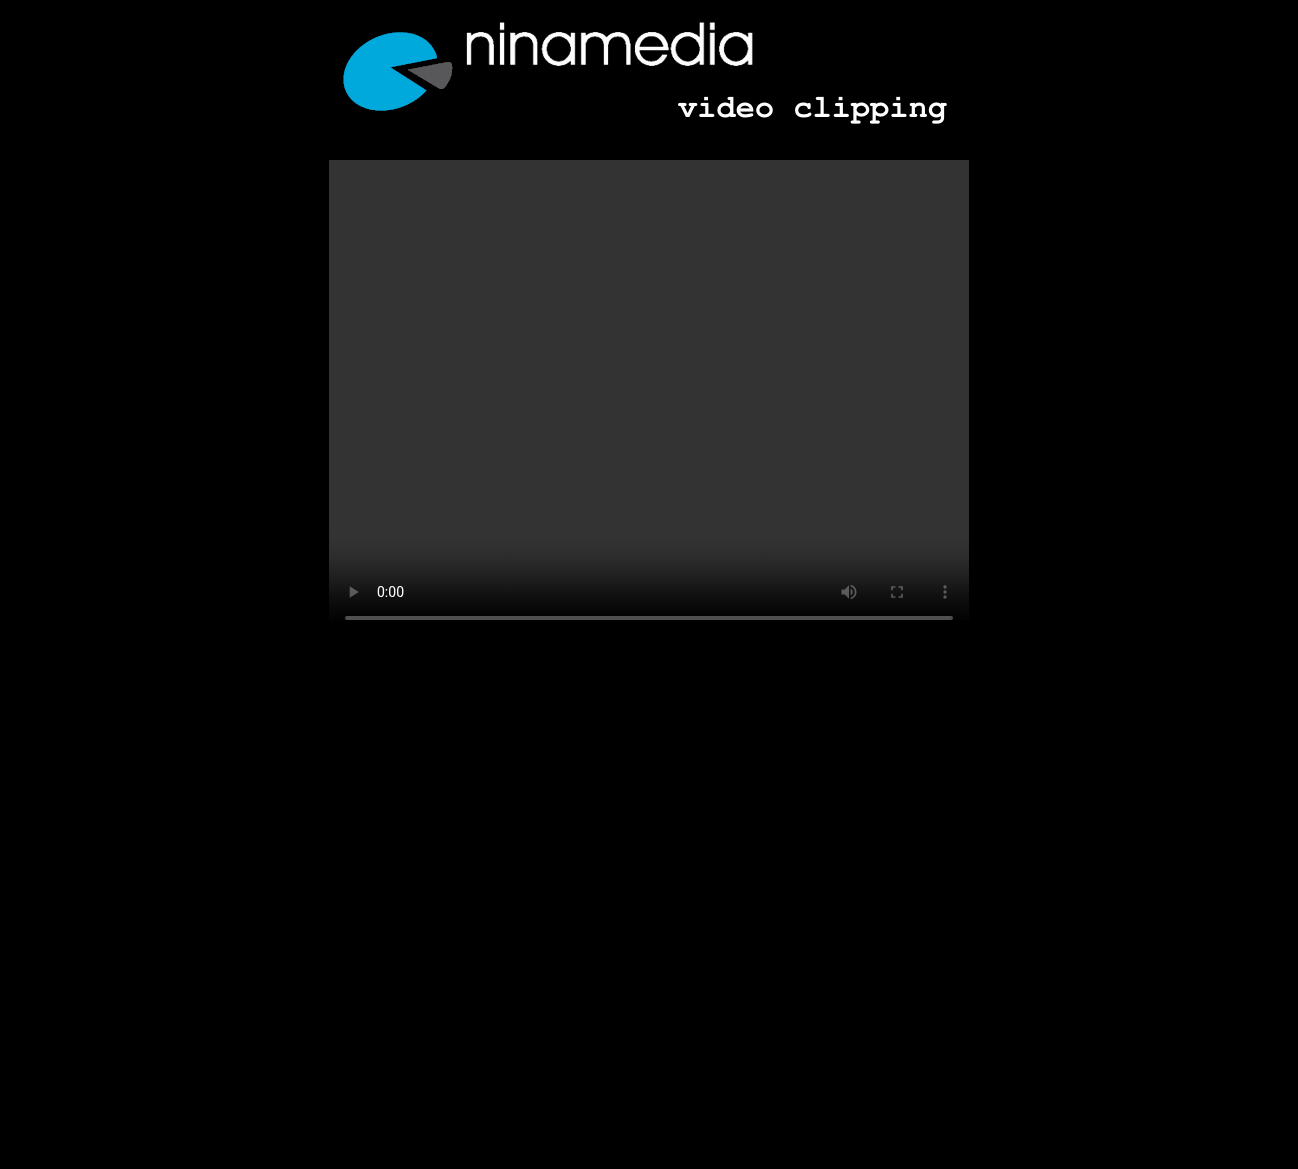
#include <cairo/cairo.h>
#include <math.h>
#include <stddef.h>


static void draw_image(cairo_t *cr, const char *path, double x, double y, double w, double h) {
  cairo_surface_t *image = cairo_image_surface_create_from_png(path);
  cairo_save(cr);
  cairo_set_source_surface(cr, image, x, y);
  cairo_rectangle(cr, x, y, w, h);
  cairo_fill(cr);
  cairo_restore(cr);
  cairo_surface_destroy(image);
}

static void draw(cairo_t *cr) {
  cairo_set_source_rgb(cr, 0, 0, 0);
  cairo_paint(cr);
  draw_image(cr, "images/1.png", 343, 22, 604, 102);
  draw_image(cr, "images/2.png", 329, 160, 640, 460);
}

int main(void) {
  cairo_surface_t *surface = cairo_image_surface_create(CAIRO_FORMAT_RGB24, 1298, 1169);
  cairo_t *cr = cairo_create(surface);
  cairo_font_options_t *options = cairo_font_options_create();
  cairo_font_options_set_hint_metrics(options, CAIRO_HINT_METRICS_OFF);
  cairo_font_options_set_hint_style(options, CAIRO_HINT_STYLE_NONE);
  cairo_set_font_options(cr, options);
  cairo_set_miter_limit(cr, 4);
  draw(cr);
  cairo_surface_write_to_png(surface, "out.png");
  cairo_font_options_destroy(options);
  cairo_destroy(cr);
  cairo_surface_destroy(surface);
  return 0;
}
